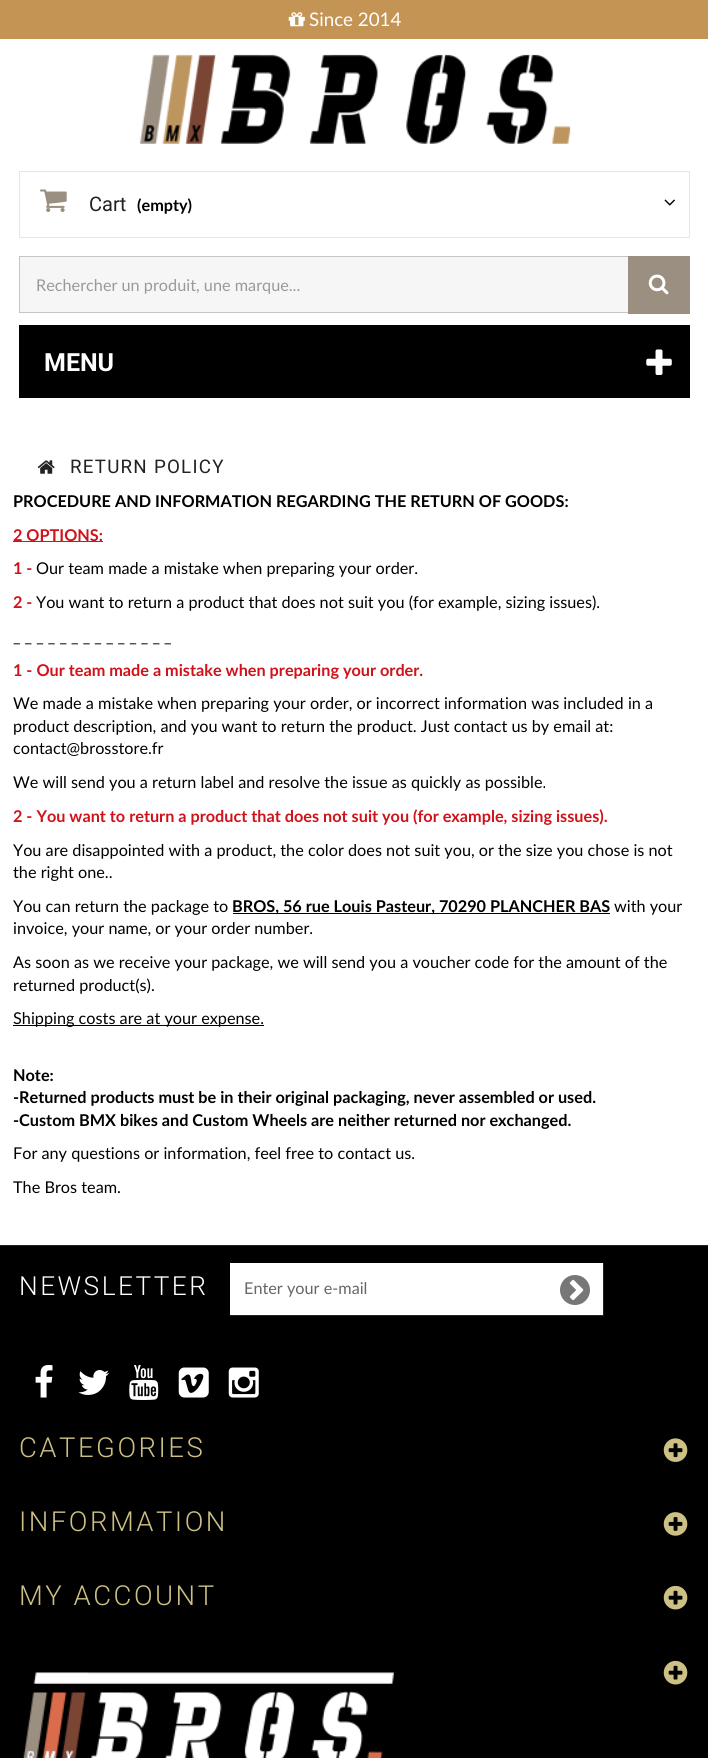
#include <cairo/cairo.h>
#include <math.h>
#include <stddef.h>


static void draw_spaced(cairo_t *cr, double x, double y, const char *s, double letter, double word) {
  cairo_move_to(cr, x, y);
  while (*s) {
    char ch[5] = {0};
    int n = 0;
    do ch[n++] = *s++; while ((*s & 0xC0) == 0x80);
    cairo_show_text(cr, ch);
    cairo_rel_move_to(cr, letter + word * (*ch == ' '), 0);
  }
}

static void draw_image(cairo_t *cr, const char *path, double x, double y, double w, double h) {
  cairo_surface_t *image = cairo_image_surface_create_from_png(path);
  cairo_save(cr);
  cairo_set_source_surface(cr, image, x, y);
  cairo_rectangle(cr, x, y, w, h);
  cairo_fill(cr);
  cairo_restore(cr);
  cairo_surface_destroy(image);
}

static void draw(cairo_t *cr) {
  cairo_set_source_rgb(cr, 1, 1, 1);
  cairo_paint(cr);
  cairo_set_source_rgb(cr, 196 / 255.0, 148 / 255.0, 85 / 255.0);
  cairo_rectangle(cr, 0, 0, 708, 39);
  cairo_fill(cr);
  draw_image(cr, "images/1.png", 288, 12, 17, 15);
  draw_image(cr, "images/2.png", 139, 54, 432, 90);
  cairo_rectangle(cr, 19.5, 171.5, 670, 66);
  cairo_set_source_rgb(cr, 230 / 255.0, 230 / 255.0, 230 / 255.0);
  cairo_set_line_width(cr, 1);
  cairo_stroke(cr);
  draw_image(cr, "images/3.png", 40, 189, 27, 23);
  draw_image(cr, "images/4.png", 664, 199, 11, 7);
  cairo_set_source_rgb(cr, 246 / 255.0, 246 / 255.0, 246 / 255.0);
  cairo_rectangle(cr, 20, 257, 608, 55);
  cairo_fill(cr);
  cairo_rectangle(cr, 19.5, 256.5, 670, 56);
  cairo_set_source_rgb(cr, 197 / 255.0, 197 / 255.0, 197 / 255.0);
  cairo_stroke(cr);
  cairo_set_source_rgb(cr, 154 / 255.0, 143 / 255.0, 129 / 255.0);
  cairo_rectangle(cr, 628, 256, 62, 58);
  cairo_fill(cr);
  draw_image(cr, "images/5.png", 648, 274, 21, 21);
  cairo_set_source_rgb(cr, 0, 0, 0);
  cairo_rectangle(cr, 19, 325, 671, 73);
  cairo_fill(cr);
  draw_image(cr, "images/6.png", 646, 349, 26, 26);
  draw_image(cr, "images/7.png", 37, 460, 18, 14);
  cairo_set_source_rgb(cr, 208 / 255.0, 18 / 255.0, 26 / 255.0);
  cairo_rectangle(cr, 13, 541, 90, 1);
  cairo_fill(cr);
  cairo_set_source_rgb(cr, 0, 0, 0);
  cairo_rectangle(cr, 233, 913, 377, 1);
  cairo_fill(cr);
  cairo_rectangle(cr, 13, 1025, 251, 1);
  cairo_fill(cr);
  cairo_rectangle(cr, 0, 1246, 708, 512);
  cairo_fill(cr);
  cairo_set_source_rgb(cr, 34 / 255.0, 34 / 255.0, 34 / 255.0);
  cairo_rectangle(cr, 0, 1245, 708, 1);
  cairo_fill(cr);
  cairo_set_source_rgb(cr, 1, 1, 1);
  cairo_rectangle(cr, 230, 1263, 373, 52);
  cairo_fill(cr);
  cairo_set_source_rgb(cr, 34 / 255.0, 34 / 255.0, 34 / 255.0);
  cairo_rectangle(cr, 603, 1263, 1, 53);
  cairo_fill(cr);
  cairo_rectangle(cr, 229, 1315, 375, 1);
  cairo_fill(cr);
  cairo_set_source_rgb(cr, 0, 0, 0);
  cairo_rectangle(cr, 229, 1315, 1, 1);
  cairo_fill(cr);
  draw_image(cr, "images/8.png", 560, 1275, 30, 30);
  draw_image(cr, "images/9.png", 35, 1365, 18, 33);
  draw_image(cr, "images/10.png", 78, 1370, 31, 25);
  draw_image(cr, "images/11.png", 129, 1365, 30, 35);
  draw_image(cr, "images/12.png", 178, 1367, 31, 31);
  draw_image(cr, "images/13.png", 228, 1367, 31, 31);
  draw_image(cr, "images/14.png", 663, 1438, 25, 24);
  draw_image(cr, "images/15.png", 663, 1512, 25, 24);
  draw_image(cr, "images/16.png", 663, 1585, 25, 25);
  draw_image(cr, "images/17.png", 23, 1672, 371, 86);
  draw_image(cr, "images/16.png", 663, 1660, 25, 25);
  cairo_select_font_face(cr, "Lato", CAIRO_FONT_SLANT_NORMAL, CAIRO_FONT_WEIGHT_NORMAL);
  cairo_set_font_size(cr, 18.75);
  cairo_set_source_rgb(cr, 1, 1, 1);
  cairo_move_to(cr, 309, 26);
  cairo_show_text(cr, "Since 2014");
  cairo_select_font_face(cr, "Roboto", CAIRO_FONT_SLANT_NORMAL, CAIRO_FONT_WEIGHT_NORMAL);
  cairo_set_font_size(cr, 20);
  cairo_set_source_rgb(cr, 34 / 255.0, 34 / 255.0, 34 / 255.0);
  cairo_move_to(cr, 89, 211);
  cairo_show_text(cr, "Cart");
  cairo_select_font_face(cr, "Lato", CAIRO_FONT_SLANT_NORMAL, CAIRO_FONT_WEIGHT_BOLD);
  cairo_set_font_size(cr, 16.25);
  cairo_set_source_rgb(cr, 0, 0, 0);
  cairo_move_to(cr, 137, 211);
  cairo_show_text(cr, "(empty)");
  cairo_select_font_face(cr, "Lato", CAIRO_FONT_SLANT_NORMAL, CAIRO_FONT_WEIGHT_NORMAL);
  cairo_set_source_rgb(cr, 153 / 255.0, 153 / 255.0, 153 / 255.0);
  cairo_move_to(cr, 36, 291);
  cairo_show_text(cr, "Rechercher un produit, une marque...");
  cairo_select_font_face(cr, "Roboto", CAIRO_FONT_SLANT_NORMAL, CAIRO_FONT_WEIGHT_BOLD);
  cairo_set_font_size(cr, 25);
  cairo_set_source_rgb(cr, 1, 1, 1);
  cairo_move_to(cr, 44, 371);
  cairo_show_text(cr, "MENU");
  cairo_select_font_face(cr, "Roboto", CAIRO_FONT_SLANT_NORMAL, CAIRO_FONT_WEIGHT_NORMAL);
  cairo_set_font_size(cr, 18.75);
  cairo_set_source_rgb(cr, 34 / 255.0, 34 / 255.0, 34 / 255.0);
  draw_spaced(cr, 70, 473, "RETURN POLICY", 1.25, 0);
  cairo_select_font_face(cr, "Lato", CAIRO_FONT_SLANT_NORMAL, CAIRO_FONT_WEIGHT_BOLD);
  cairo_set_font_size(cr, 16.25);
  cairo_set_source_rgb(cr, 0, 0, 0);
  cairo_move_to(cr, 13, 507);
  cairo_show_text(cr, "PROCEDURE AND INFORMATION REGARDING THE RETURN OF GOODS:");
  cairo_set_source_rgb(cr, 208 / 255.0, 18 / 255.0, 26 / 255.0);
  cairo_move_to(cr, 13, 541);
  cairo_show_text(cr, "2 OPTIONS:");
  cairo_move_to(cr, 13, 574);
  cairo_show_text(cr, "1 -");
  cairo_select_font_face(cr, "Lato", CAIRO_FONT_SLANT_NORMAL, CAIRO_FONT_WEIGHT_NORMAL);
  cairo_set_source_rgb(cr, 0, 0, 0);
  cairo_move_to(cr, 36, 574);
  cairo_show_text(cr, "Our team made a mistake when preparing your order.");
  cairo_select_font_face(cr, "Lato", CAIRO_FONT_SLANT_NORMAL, CAIRO_FONT_WEIGHT_BOLD);
  cairo_set_source_rgb(cr, 208 / 255.0, 18 / 255.0, 26 / 255.0);
  cairo_move_to(cr, 13, 608);
  cairo_show_text(cr, "2 -");
  cairo_select_font_face(cr, "Lato", CAIRO_FONT_SLANT_NORMAL, CAIRO_FONT_WEIGHT_NORMAL);
  cairo_set_source_rgb(cr, 0, 0, 0);
  cairo_move_to(cr, 36, 608);
  cairo_show_text(cr, "You want to return a product that does not suit you (for example, sizing issues).");
  cairo_move_to(cr, 13, 642);
  cairo_show_text(cr, "_ _ _ _ _ _ _ _ _ _ _ _ _ _");
  cairo_select_font_face(cr, "Lato", CAIRO_FONT_SLANT_NORMAL, CAIRO_FONT_WEIGHT_BOLD);
  cairo_set_source_rgb(cr, 208 / 255.0, 18 / 255.0, 26 / 255.0);
  cairo_move_to(cr, 13, 676);
  cairo_show_text(cr, "1 - Our team made a mistake when preparing your order.");
  cairo_select_font_face(cr, "Lato", CAIRO_FONT_SLANT_NORMAL, CAIRO_FONT_WEIGHT_NORMAL);
  cairo_set_source_rgb(cr, 0, 0, 0);
  cairo_move_to(cr, 13, 709);
  cairo_show_text(cr, "We made a mistake when preparing your order, or incorrect information was included in a");
  cairo_move_to(cr, 13, 732);
  cairo_show_text(cr, "product description, and you want to return the product. Just contact us by email at:");
  cairo_move_to(cr, 13, 754);
  cairo_show_text(cr, "contact@brosstore.fr");
  cairo_move_to(cr, 13, 788);
  cairo_show_text(cr, "We will send you a return label and resolve the issue as quickly as possible.");
  cairo_select_font_face(cr, "Lato", CAIRO_FONT_SLANT_NORMAL, CAIRO_FONT_WEIGHT_BOLD);
  cairo_set_source_rgb(cr, 208 / 255.0, 18 / 255.0, 26 / 255.0);
  cairo_move_to(cr, 13, 822);
  cairo_show_text(cr, "2 - You want to return a product that does not suit you (for example, sizing issues).");
  cairo_select_font_face(cr, "Lato", CAIRO_FONT_SLANT_NORMAL, CAIRO_FONT_WEIGHT_NORMAL);
  cairo_set_source_rgb(cr, 0, 0, 0);
  cairo_move_to(cr, 13, 856);
  cairo_show_text(cr, "You are disappointed with a product, the color does not suit you, or the size you chose is not");
  cairo_move_to(cr, 13, 878);
  cairo_show_text(cr, "the right one..");
  cairo_move_to(cr, 13, 912);
  cairo_show_text(cr, "You can return the package to");
  cairo_select_font_face(cr, "Lato", CAIRO_FONT_SLANT_NORMAL, CAIRO_FONT_WEIGHT_BOLD);
  cairo_move_to(cr, 232, 912);
  cairo_show_text(cr, "BROS, 56 rue Louis Pasteur, 70290 PLANCHER BAS");
  cairo_select_font_face(cr, "Lato", CAIRO_FONT_SLANT_NORMAL, CAIRO_FONT_WEIGHT_NORMAL);
  cairo_move_to(cr, 614, 912);
  cairo_show_text(cr, "with your");
  cairo_move_to(cr, 13, 934);
  cairo_show_text(cr, "invoice, your name, or your order number.");
  cairo_move_to(cr, 13, 968);
  cairo_show_text(cr, "As soon as we receive your package, we will send you a voucher code for the amount of the");
  cairo_move_to(cr, 13, 991);
  cairo_show_text(cr, "returned product(s).");
  cairo_move_to(cr, 13, 1024);
  cairo_show_text(cr, "Shipping costs are at your expense.");
  cairo_select_font_face(cr, "Lato", CAIRO_FONT_SLANT_NORMAL, CAIRO_FONT_WEIGHT_BOLD);
  cairo_move_to(cr, 13, 1081);
  cairo_show_text(cr, "Note:");
  cairo_move_to(cr, 13, 1103);
  cairo_show_text(cr, "-Returned products must be in their original packaging, never assembled or used.");
  cairo_move_to(cr, 13, 1126);
  cairo_show_text(cr, "-Custom BMX bikes and Custom Wheels are neither returned nor exchanged.");
  cairo_select_font_face(cr, "Lato", CAIRO_FONT_SLANT_NORMAL, CAIRO_FONT_WEIGHT_NORMAL);
  cairo_move_to(cr, 13, 1159);
  cairo_show_text(cr, "For any questions or information, feel free to contact us.");
  cairo_move_to(cr, 13, 1193);
  cairo_show_text(cr, "The Bros team.");
  cairo_select_font_face(cr, "Roboto Light", CAIRO_FONT_SLANT_NORMAL, CAIRO_FONT_WEIGHT_NORMAL);
  cairo_set_font_size(cr, 26.25);
  cairo_set_source_rgb(cr, 1, 1, 1);
  draw_spaced(cr, 19, 1295, "NEWSLETTER", 2.5, 0);
  cairo_select_font_face(cr, "Lato", CAIRO_FONT_SLANT_NORMAL, CAIRO_FONT_WEIGHT_NORMAL);
  cairo_set_font_size(cr, 16.25);
  cairo_set_source_rgb(cr, 102 / 255.0, 102 / 255.0, 102 / 255.0);
  cairo_move_to(cr, 244, 1294);
  cairo_show_text(cr, "Enter your e-mail");
  cairo_select_font_face(cr, "Roboto Light", CAIRO_FONT_SLANT_NORMAL, CAIRO_FONT_WEIGHT_NORMAL);
  cairo_set_font_size(cr, 27.5);
  cairo_set_source_rgb(cr, 204 / 255.0, 192 / 255.0, 132 / 255.0);
  draw_spaced(cr, 19, 1457, "CATEGORIES", 2.5, 0);
  draw_spaced(cr, 19, 1531, "INFORMATION", 2.5, 0);
  draw_spaced(cr, 19, 1605, "MY ACCOUNT", 2.5, 0);
}

int main(void) {
  cairo_surface_t *surface = cairo_image_surface_create(CAIRO_FORMAT_RGB24, 708, 1758);
  cairo_t *cr = cairo_create(surface);
  cairo_font_options_t *options = cairo_font_options_create();
  cairo_font_options_set_hint_metrics(options, CAIRO_HINT_METRICS_OFF);
  cairo_font_options_set_hint_style(options, CAIRO_HINT_STYLE_NONE);
  cairo_set_font_options(cr, options);
  cairo_set_miter_limit(cr, 4);
  draw(cr);
  cairo_surface_write_to_png(surface, "out.png");
  cairo_font_options_destroy(options);
  cairo_destroy(cr);
  cairo_surface_destroy(surface);
  return 0;
}
